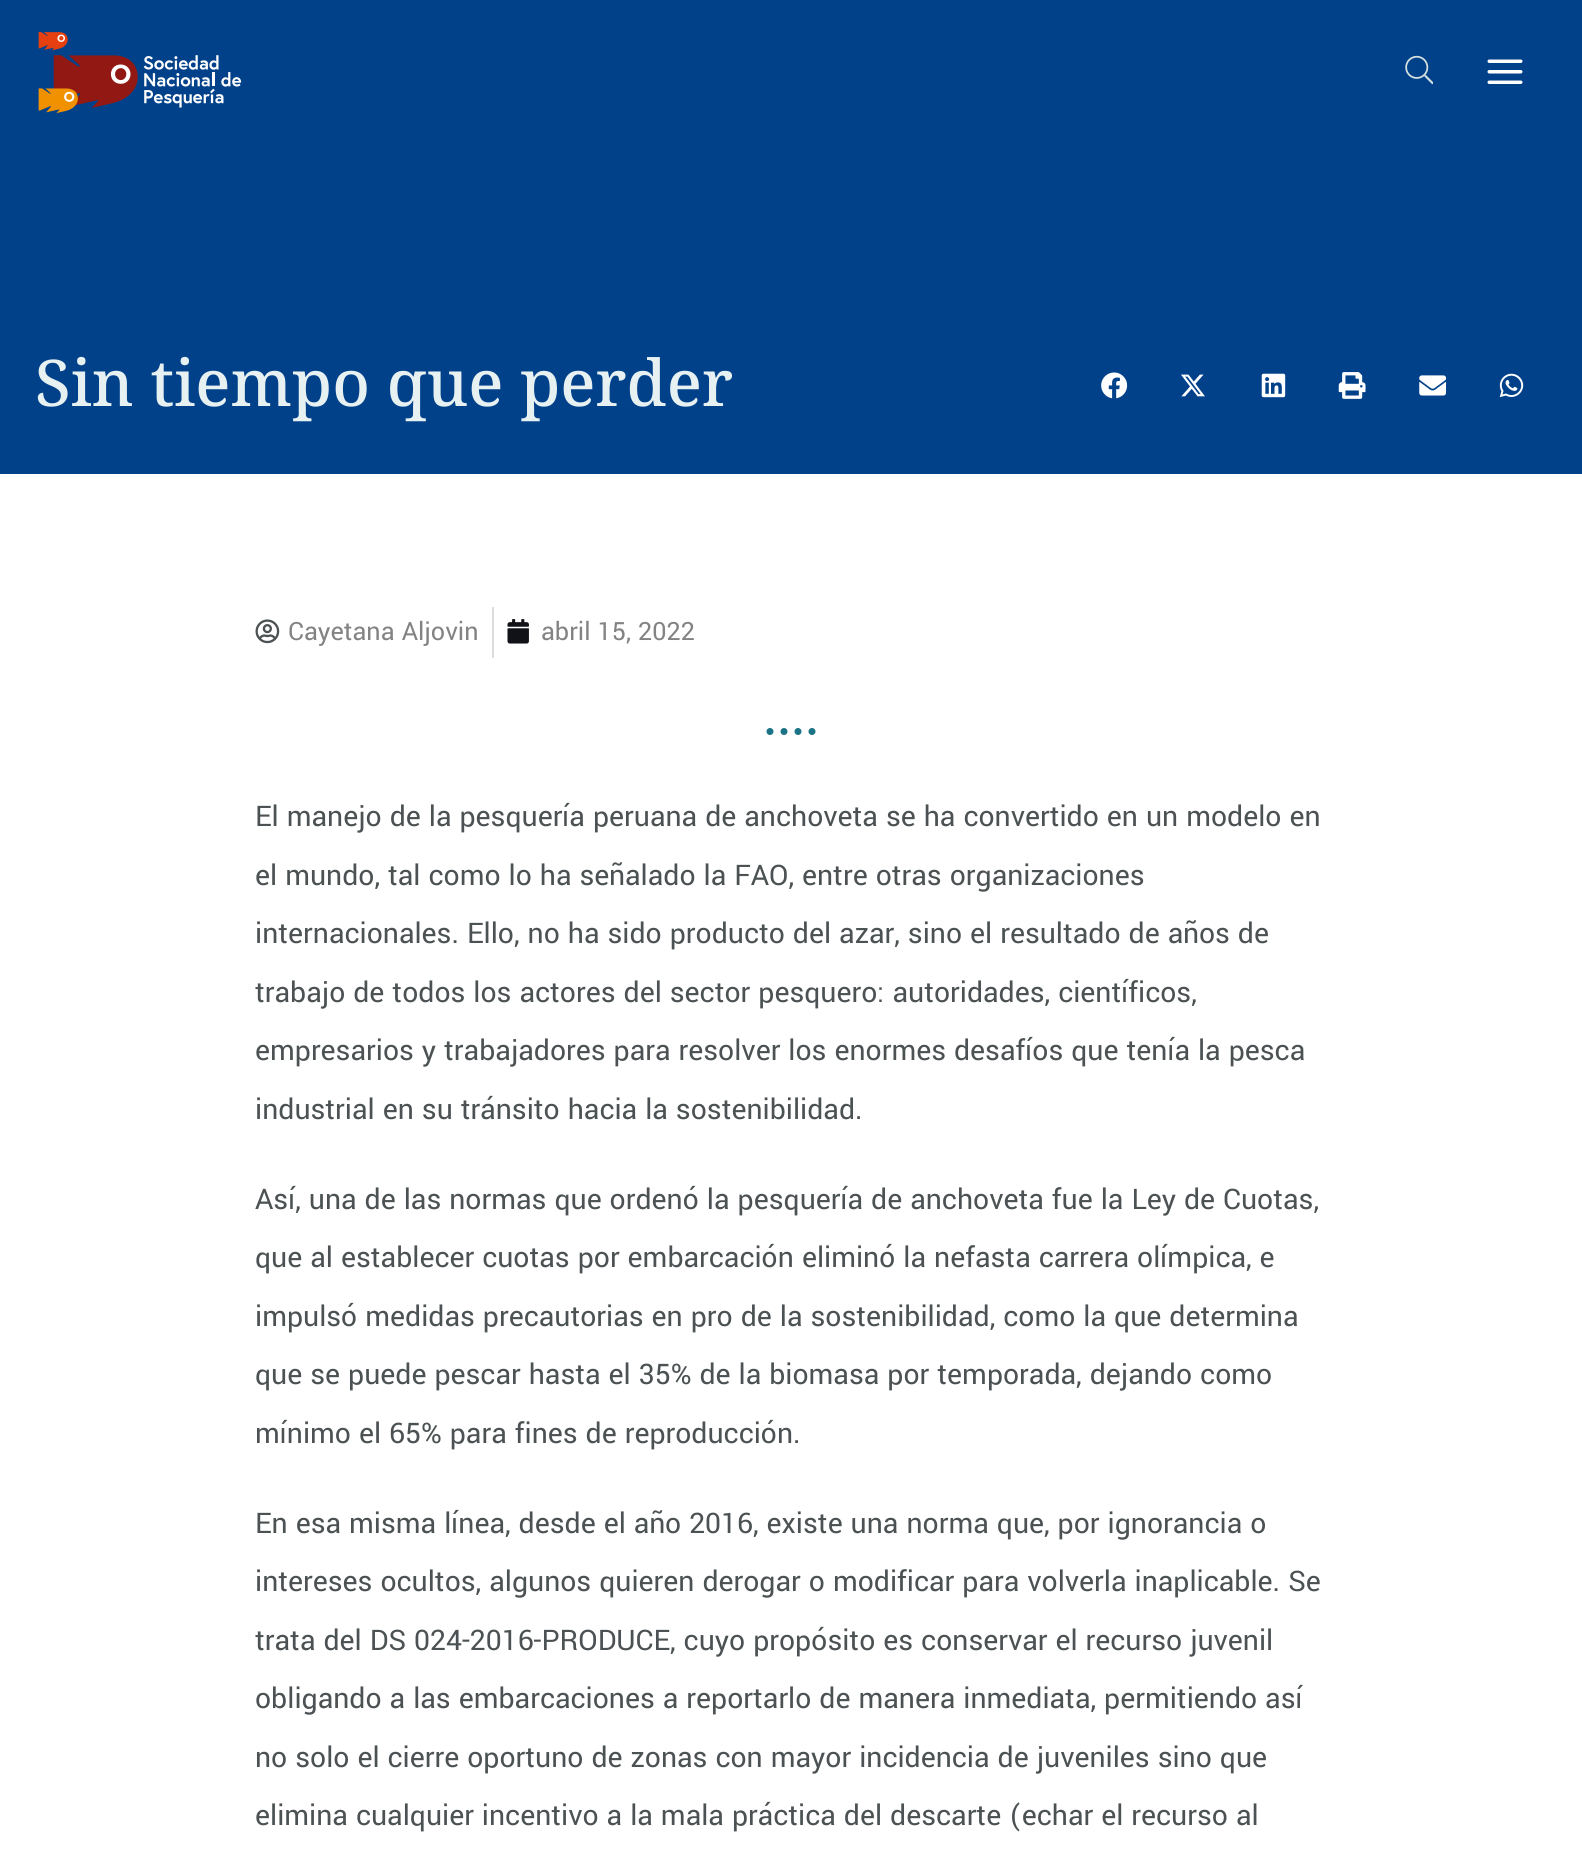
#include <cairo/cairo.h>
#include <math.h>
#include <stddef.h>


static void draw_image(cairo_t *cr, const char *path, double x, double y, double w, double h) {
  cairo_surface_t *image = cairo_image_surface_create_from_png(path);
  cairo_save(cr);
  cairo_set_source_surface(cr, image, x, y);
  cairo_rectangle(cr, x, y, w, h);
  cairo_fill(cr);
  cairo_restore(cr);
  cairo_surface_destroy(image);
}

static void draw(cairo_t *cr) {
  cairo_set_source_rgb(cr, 1 / 255.0, 65 / 255.0, 138 / 255.0);
  cairo_paint(cr);
  draw_image(cr, "images/1.png", 38, 32, 204, 82);
  draw_image(cr, "images/2.png", 1405, 55, 28, 30);
  draw_image(cr, "images/3.png", 1487, 59, 36, 25);
  cairo_set_source_rgb(cr, 1, 1, 1);
  cairo_rectangle(cr, 0, 474, 1582, 1396);
  cairo_fill(cr);
  draw_image(cr, "images/4.png", 1101, 372, 27, 27);
  draw_image(cr, "images/5.png", 1181, 374, 24, 23);
  draw_image(cr, "images/6.png", 1261, 373, 25, 25);
  draw_image(cr, "images/7.png", 1338, 372, 28, 27);
  draw_image(cr, "images/8.png", 1419, 375, 28, 21);
  draw_image(cr, "images/9.png", 1499, 373, 25, 25);
  draw_image(cr, "images/10.png", 255, 619, 25, 25);
  cairo_set_source_rgb(cr, 221 / 255.0, 221 / 255.0, 221 / 255.0);
  cairo_rectangle(cr, 492, 607, 2, 51);
  cairo_fill(cr);
  draw_image(cr, "images/11.png", 507, 619, 22, 25);
  cairo_new_path(cr);
  cairo_move_to(cr, 770, 731.5);
  cairo_line_to(cr, 812, 731.5);
  cairo_set_source_rgb(cr, 28 / 255.0, 115 / 255.0, 134 / 255.0);
  cairo_set_line_width(cr, 7);
  cairo_set_line_cap(cr, CAIRO_LINE_CAP_ROUND);
  cairo_set_dash(cr, (double[]){0, 14}, 2, 0);
  cairo_stroke(cr);
  cairo_select_font_face(cr, "Noto Serif Medium", CAIRO_FONT_SLANT_NORMAL, CAIRO_FONT_WEIGHT_NORMAL);
  cairo_set_font_size(cr, 64.4);
  cairo_set_source_rgb(cr, 231 / 255.0, 241 / 255.0, 242 / 255.0);
  cairo_move_to(cr, 35, 406);
  cairo_show_text(cr, "Sin tiempo que perder");
  cairo_select_font_face(cr, "Yantramanav", CAIRO_FONT_SLANT_NORMAL, CAIRO_FONT_WEIGHT_NORMAL);
  cairo_set_font_size(cr, 28);
  cairo_set_source_rgb(cr, 131 / 255.0, 131 / 255.0, 131 / 255.0);
  cairo_move_to(cr, 288, 640);
  cairo_show_text(cr, "Cayetana Aljovin");
  cairo_move_to(cr, 541, 640);
  cairo_show_text(cr, "abril 15, 2022");
  cairo_set_font_size(cr, 31.5);
  cairo_set_source_rgb(cr, 76 / 255.0, 82 / 255.0, 83 / 255.0);
  cairo_move_to(cr, 255, 826);
  cairo_show_text(cr, "El manejo de la pesquería peruana de anchoveta se ha convertido en un modelo en");
  cairo_move_to(cr, 255, 885);
  cairo_show_text(cr, "el mundo, tal como lo ha señalado la FAO, entre otras organizaciones");
  cairo_move_to(cr, 255, 943);
  cairo_show_text(cr, "internacionales. Ello, no ha sido producto del azar, sino el resultado de años de");
  cairo_move_to(cr, 255, 1002);
  cairo_show_text(cr, "trabajo de todos los actores del sector pesquero: autoridades, científicos,");
  cairo_move_to(cr, 255, 1060);
  cairo_show_text(cr, "empresarios y trabajadores para resolver los enormes desafíos que tenía la pesca");
  cairo_move_to(cr, 255, 1119);
  cairo_show_text(cr, "industrial en su tránsito hacia la sostenibilidad.");
  cairo_move_to(cr, 255, 1209);
  cairo_show_text(cr, "Así, una de las normas que ordenó la pesquería de anchoveta fue la Ley de Cuotas,");
  cairo_move_to(cr, 255, 1267);
  cairo_show_text(cr, "que al establecer cuotas por embarcación eliminó la nefasta carrera olímpica, e");
  cairo_move_to(cr, 255, 1326);
  cairo_show_text(cr, "impulsó medidas precautorias en pro de la sostenibilidad, como la que determina");
  cairo_move_to(cr, 255, 1384);
  cairo_show_text(cr, "que se puede pescar hasta el 35% de la biomasa por temporada, dejando como");
  cairo_move_to(cr, 255, 1443);
  cairo_show_text(cr, "mínimo el 65% para fines de reproducción.");
  cairo_move_to(cr, 255, 1533);
  cairo_show_text(cr, "En esa misma línea, desde el año 2016, existe una norma que, por ignorancia o");
  cairo_move_to(cr, 255, 1591);
  cairo_show_text(cr, "intereses ocultos, algunos quieren derogar o modificar para volverla inaplicable. Se");
  cairo_move_to(cr, 255, 1650);
  cairo_show_text(cr, "trata del DS 024-2016-PRODUCE, cuyo propósito es conservar el recurso juvenil");
  cairo_move_to(cr, 255, 1708);
  cairo_show_text(cr, "obligando a las embarcaciones a reportarlo de manera inmediata, permitiendo así");
  cairo_move_to(cr, 255, 1767);
  cairo_show_text(cr, "no solo el cierre oportuno de zonas con mayor incidencia de juveniles sino que");
  cairo_move_to(cr, 255, 1825);
  cairo_show_text(cr, "elimina cualquier incentivo a la mala práctica del descarte (echar el recurso al");
}

int main(void) {
  cairo_surface_t *surface = cairo_image_surface_create(CAIRO_FORMAT_RGB24, 1582, 1870);
  cairo_t *cr = cairo_create(surface);
  cairo_font_options_t *options = cairo_font_options_create();
  cairo_font_options_set_hint_metrics(options, CAIRO_HINT_METRICS_OFF);
  cairo_font_options_set_hint_style(options, CAIRO_HINT_STYLE_NONE);
  cairo_set_font_options(cr, options);
  cairo_set_miter_limit(cr, 4);
  draw(cr);
  cairo_surface_write_to_png(surface, "out.png");
  cairo_font_options_destroy(options);
  cairo_destroy(cr);
  cairo_surface_destroy(surface);
  return 0;
}
